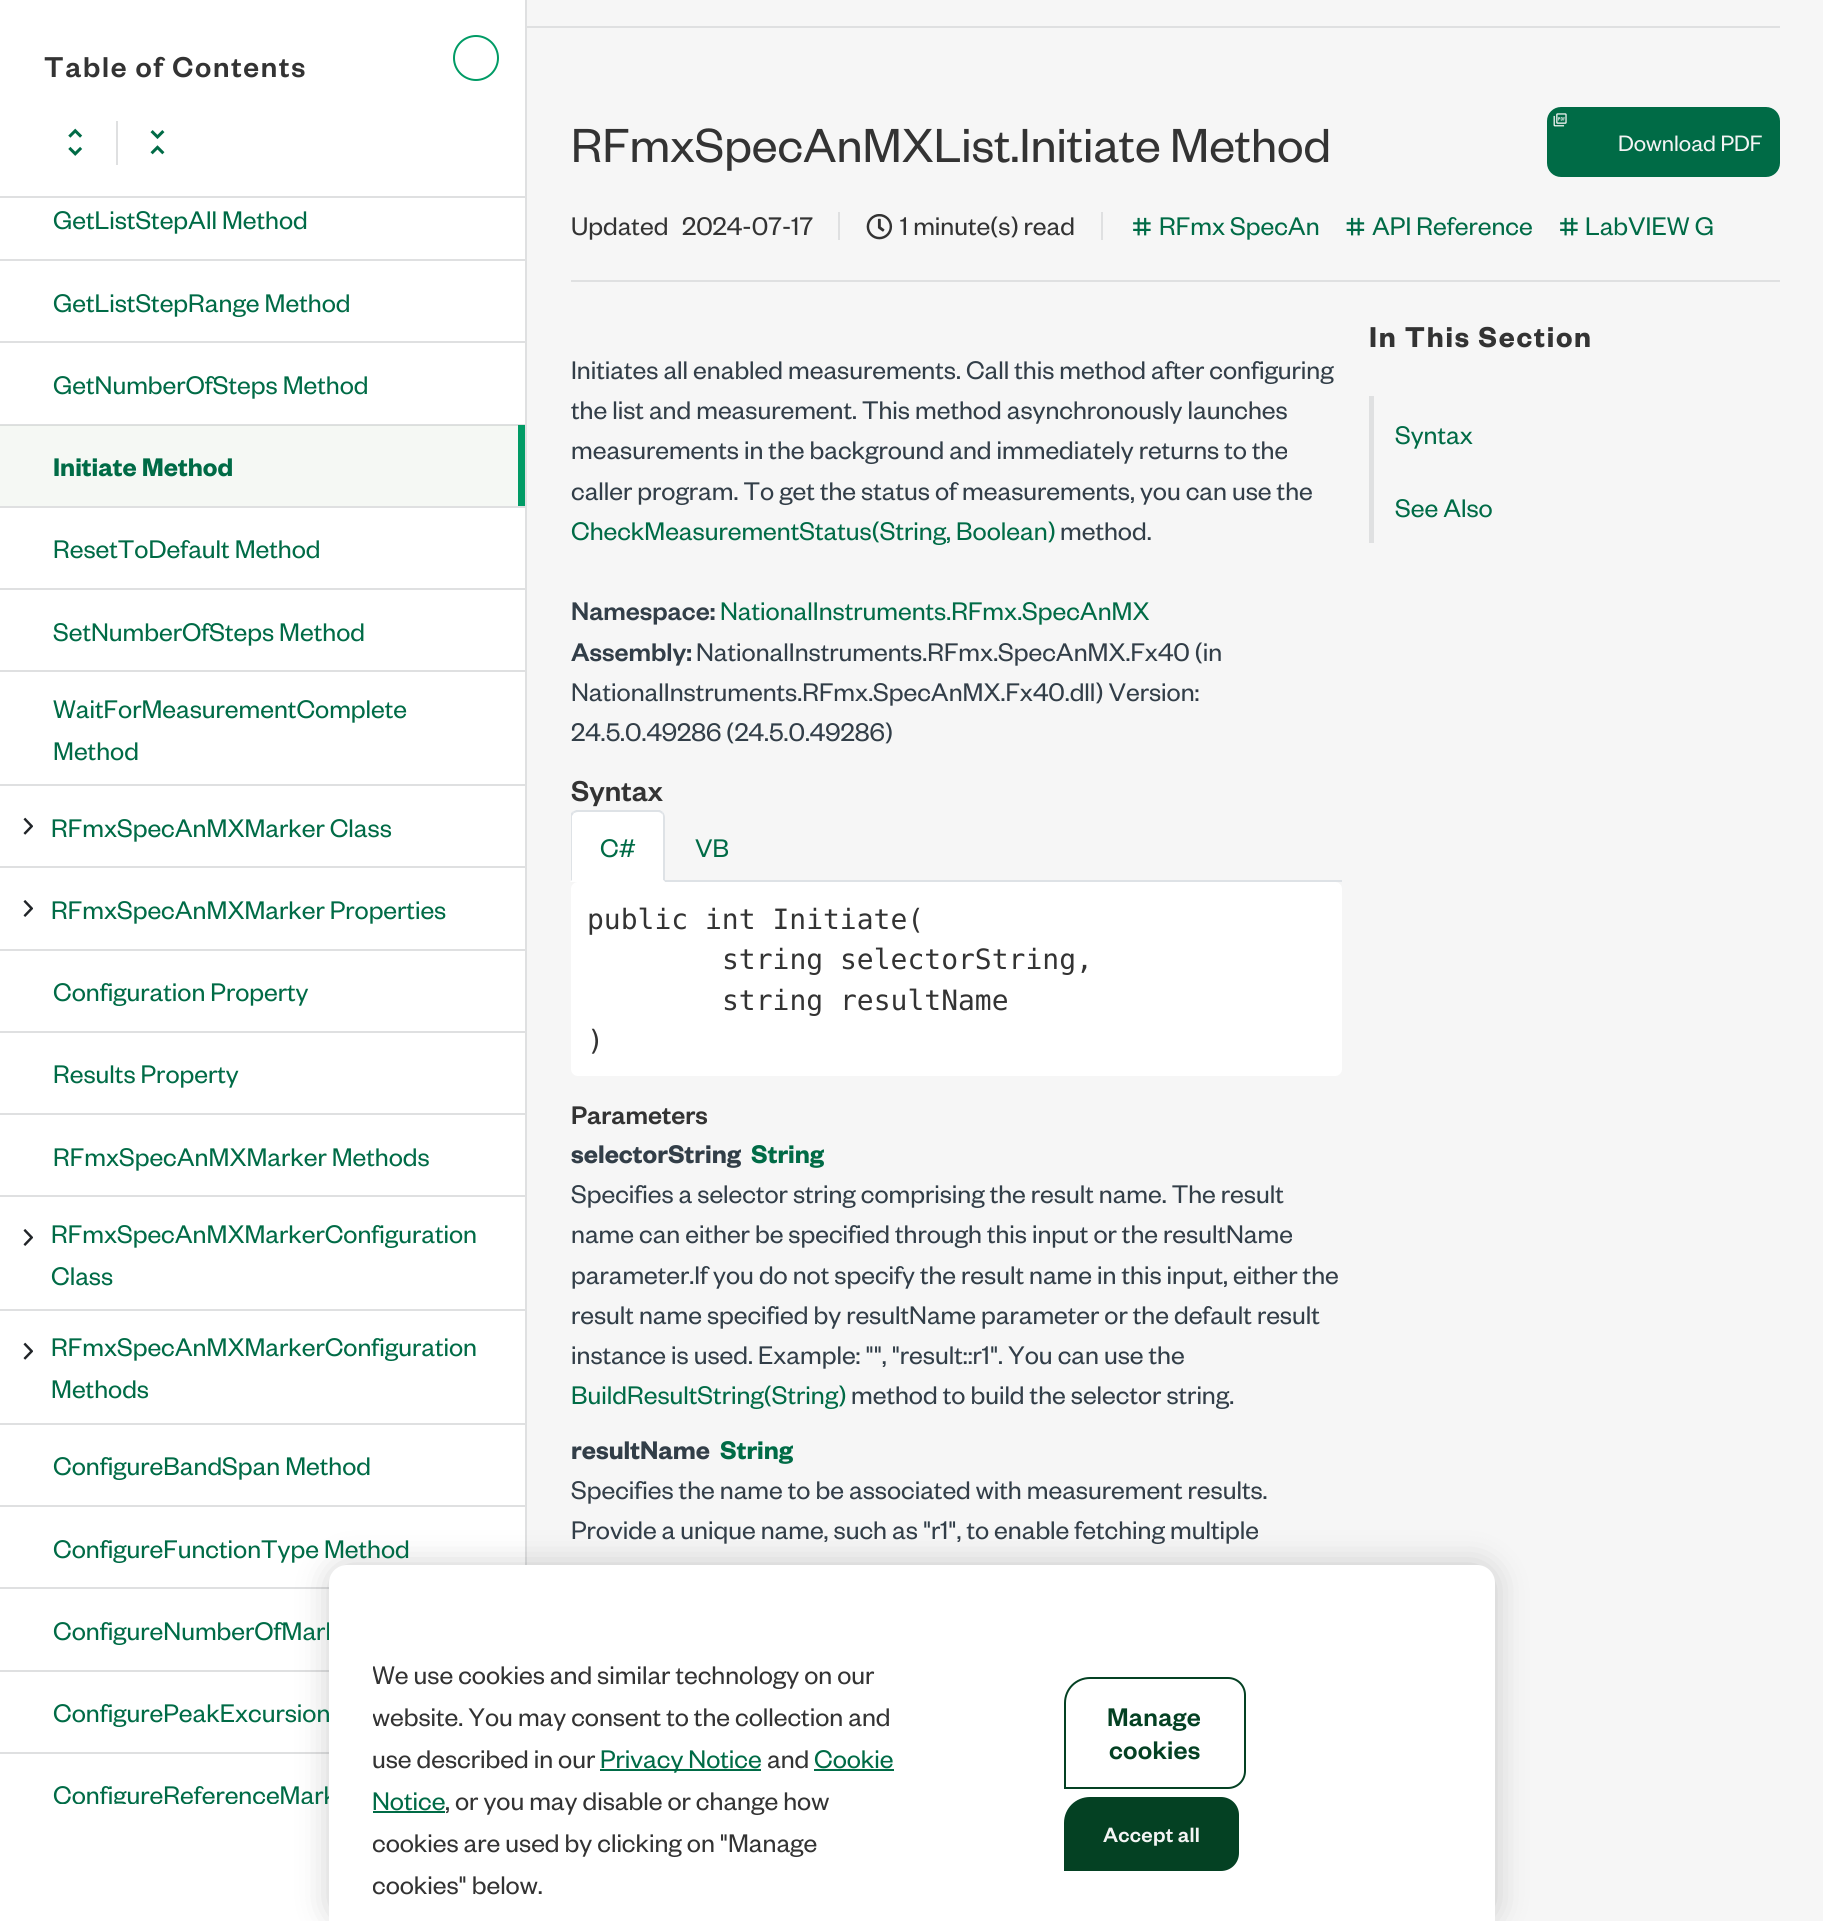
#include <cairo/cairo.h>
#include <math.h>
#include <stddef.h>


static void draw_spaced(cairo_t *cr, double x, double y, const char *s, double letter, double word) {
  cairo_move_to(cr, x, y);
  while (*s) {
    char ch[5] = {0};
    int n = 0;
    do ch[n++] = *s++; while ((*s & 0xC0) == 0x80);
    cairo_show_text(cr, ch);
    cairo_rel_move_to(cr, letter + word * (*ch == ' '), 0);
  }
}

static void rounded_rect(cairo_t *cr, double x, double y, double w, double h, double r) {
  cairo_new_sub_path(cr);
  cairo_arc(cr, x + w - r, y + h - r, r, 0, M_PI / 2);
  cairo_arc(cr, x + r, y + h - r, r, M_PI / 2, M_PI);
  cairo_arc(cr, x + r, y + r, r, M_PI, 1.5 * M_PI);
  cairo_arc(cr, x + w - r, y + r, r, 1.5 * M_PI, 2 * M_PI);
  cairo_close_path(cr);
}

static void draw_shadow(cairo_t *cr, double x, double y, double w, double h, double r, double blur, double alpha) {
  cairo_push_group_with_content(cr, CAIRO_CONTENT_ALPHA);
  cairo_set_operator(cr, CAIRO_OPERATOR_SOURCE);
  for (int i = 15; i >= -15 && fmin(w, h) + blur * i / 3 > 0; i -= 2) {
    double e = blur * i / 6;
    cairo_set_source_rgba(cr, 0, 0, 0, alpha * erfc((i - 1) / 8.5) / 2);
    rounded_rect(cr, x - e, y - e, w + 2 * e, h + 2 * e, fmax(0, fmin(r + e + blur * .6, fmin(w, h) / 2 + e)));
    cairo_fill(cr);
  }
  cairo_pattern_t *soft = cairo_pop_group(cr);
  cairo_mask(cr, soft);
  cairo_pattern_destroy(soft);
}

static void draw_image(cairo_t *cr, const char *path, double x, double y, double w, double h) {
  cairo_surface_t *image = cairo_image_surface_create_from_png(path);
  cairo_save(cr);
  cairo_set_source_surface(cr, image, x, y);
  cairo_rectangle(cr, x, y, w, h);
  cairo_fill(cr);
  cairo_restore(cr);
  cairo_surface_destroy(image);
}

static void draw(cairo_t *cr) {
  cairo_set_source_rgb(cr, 246 / 255.0, 246 / 255.0, 246 / 255.0);
  cairo_paint(cr);
  cairo_set_source_rgb(cr, 1, 1, 1);
  cairo_rectangle(cr, 0, 0, 525, 1921);
  cairo_fill(cr);
  cairo_set_source_rgb(cr, 245 / 255.0, 248 / 255.0, 244 / 255.0);
  cairo_rectangle(cr, 0, 426, 518, 80);
  cairo_fill(cr);
  cairo_set_source_rgb(cr, 223 / 255.0, 224 / 255.0, 225 / 255.0);
  cairo_rectangle(cr, 525, 0, 2, 1565);
  cairo_fill(cr);
  cairo_rectangle(cr, 0, 196, 525, 2);
  cairo_fill(cr);
  cairo_arc(cr, 476, 58, 22, 0, 2 * M_PI);
  cairo_set_source_rgb(cr, 0, 155 / 255.0, 101 / 255.0);
  cairo_stroke(cr);
  draw_image(cr, "images/1.png", 68, 128, 15, 28);
  cairo_set_source_rgb(cr, 223 / 255.0, 224 / 255.0, 225 / 255.0);
  cairo_rectangle(cr, 116, 121, 2, 44);
  cairo_fill(cr);
  draw_image(cr, "images/2.png", 150, 130, 15, 25);
  cairo_rectangle(cr, 0, 259, 525, 2);
  cairo_fill(cr);
  cairo_rectangle(cr, 0, 341, 525, 2);
  cairo_fill(cr);
  cairo_rectangle(cr, 0, 424, 525, 1);
  cairo_fill(cr);
  cairo_set_source_rgb(cr, 219 / 255.0, 223 / 255.0, 220 / 255.0);
  cairo_rectangle(cr, 0, 425, 525, 1);
  cairo_fill(cr);
  cairo_set_source_rgb(cr, 223 / 255.0, 224 / 255.0, 225 / 255.0);
  cairo_rectangle(cr, 0, 506, 525, 2);
  cairo_fill(cr);
  cairo_set_source_rgb(cr, 0, 155 / 255.0, 101 / 255.0);
  cairo_rectangle(cr, 518, 425, 7, 81);
  cairo_fill(cr);
  cairo_set_source_rgb(cr, 223 / 255.0, 224 / 255.0, 225 / 255.0);
  cairo_rectangle(cr, 0, 588, 525, 2);
  cairo_fill(cr);
  cairo_rectangle(cr, 0, 670, 525, 2);
  cairo_fill(cr);
  cairo_rectangle(cr, 0, 784, 525, 2);
  cairo_fill(cr);
  cairo_rectangle(cr, 0, 866, 525, 2);
  cairo_fill(cr);
  draw_image(cr, "images/3.png", 23, 817, 10, 18);
  cairo_rectangle(cr, 0, 949, 525, 2);
  cairo_fill(cr);
  draw_image(cr, "images/4.png", 23, 900, 10, 17);
  cairo_rectangle(cr, 0, 1031, 525, 2);
  cairo_fill(cr);
  cairo_rectangle(cr, 0, 1113, 525, 2);
  cairo_fill(cr);
  cairo_rectangle(cr, 0, 1195, 525, 2);
  cairo_fill(cr);
  cairo_rectangle(cr, 0, 1309, 525, 2);
  cairo_fill(cr);
  draw_image(cr, "images/4.png", 23, 1229, 10, 17);
  cairo_rectangle(cr, 0, 1423, 525, 2);
  cairo_fill(cr);
  draw_image(cr, "images/3.png", 23, 1342, 10, 18);
  cairo_rectangle(cr, 0, 1505, 525, 2);
  cairo_fill(cr);
  cairo_rectangle(cr, 0, 1587, 329, 2);
  cairo_fill(cr);
  cairo_rectangle(cr, 0, 1670, 329, 2);
  cairo_fill(cr);
  cairo_rectangle(cr, 0, 1752, 329, 2);
  cairo_fill(cr);
  cairo_rectangle(cr, 527, 26, 1253, 2);
  cairo_fill(cr);
  cairo_rectangle(cr, 571, 280, 1209, 2);
  cairo_fill(cr);
  cairo_set_source_rgb(cr, 0, 107 / 255.0, 70 / 255.0);
  rounded_rect(cr, 1547, 107, 233, 70, 14);
  cairo_fill(cr);
  draw_image(cr, "images/5.png", 1553, 113, 14, 14);
  cairo_set_source_rgb(cr, 223 / 255.0, 224 / 255.0, 225 / 255.0);
  cairo_rectangle(cr, 838, 212, 2, 28);
  cairo_fill(cr);
  draw_image(cr, "images/6.png", 866, 214, 27, 26);
  cairo_rectangle(cr, 1101, 212, 2, 28);
  cairo_fill(cr);
  draw_image(cr, "images/7.png", 1133, 217, 18, 19);
  draw_image(cr, "images/8.png", 1346, 217, 19, 19);
  draw_image(cr, "images/7.png", 1560, 217, 18, 19);
  cairo_set_source_rgb(cr, 222 / 255.0, 226 / 255.0, 230 / 255.0);
  cairo_rectangle(cr, 665, 880, 677, 2);
  cairo_fill(cr);
  cairo_set_source_rgb(cr, 1, 1, 1);
  cairo_new_path(cr);
  cairo_move_to(cr, 578, 810);
  cairo_line_to(cr, 658, 810);
  cairo_curve_to(cr, 662, 810, 665, 813, 665, 817);
  cairo_line_to(cr, 665, 882);
  cairo_line_to(cr, 571, 882);
  cairo_line_to(cr, 571, 817);
  cairo_curve_to(cr, 571, 813, 574, 810, 578, 810);
  cairo_close_path(cr);
  cairo_fill(cr);
  cairo_set_source_rgb(cr, 222 / 255.0, 226 / 255.0, 230 / 255.0);
  cairo_new_path(cr);
  cairo_move_to(cr, 578, 812);
  cairo_curve_to(cr, 576, 812, 575, 813, 574, 813);
  cairo_line_to(cr, 572, 812);
  cairo_line_to(cr, 576, 810);
  cairo_line_to(cr, 660, 810);
  cairo_line_to(cr, 663, 812);
  cairo_line_to(cr, 662, 814);
  cairo_curve_to(cr, 661, 813, 660, 812, 658, 812);
  cairo_close_path(cr);
  cairo_fill(cr);
  cairo_new_path(cr);
  cairo_move_to(cr, 665, 882);
  cairo_line_to(cr, 665, 817);
  cairo_curve_to(cr, 665, 815, 664, 813, 663, 812);
  cairo_line_to(cr, 662, 814);
  cairo_curve_to(cr, 663, 814, 663, 816, 663, 817);
  cairo_line_to(cr, 663, 880);
  cairo_close_path(cr);
  cairo_fill(cr);
  cairo_set_source_rgb(cr, 1, 1, 1);
  cairo_new_path(cr);
  cairo_move_to(cr, 665, 882);
  cairo_line_to(cr, 663, 880);
  cairo_line_to(cr, 572, 880);
  cairo_line_to(cr, 570, 882);
  cairo_close_path(cr);
  cairo_fill(cr);
  cairo_save(cr);
  cairo_rectangle(cr, 571, 308, 771, 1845);
  cairo_clip(cr);
  cairo_set_source_rgb(cr, 222 / 255.0, 226 / 255.0, 230 / 255.0);
  cairo_new_path(cr);
  cairo_move_to(cr, 570, 882);
  cairo_line_to(cr, 570, 815);
  cairo_line_to(cr, 572, 812);
  cairo_line_to(cr, 574, 813);
  cairo_line_to(cr, 572, 816);
  cairo_line_to(cr, 572, 880);
  cairo_close_path(cr);
  cairo_fill(cr);
  cairo_restore(cr);
  rounded_rect(cr, 571, 882, 771, 194, 7);
  cairo_fill(cr);
  cairo_set_source_rgb(cr, 223 / 255.0, 224 / 255.0, 225 / 255.0);
  cairo_rectangle(cr, 1369, 396, 5, 147);
  cairo_fill(cr);
  cairo_set_source_rgb(cr, 0, 0, 0);
  draw_shadow(cr, 329, 1565, 1166, 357, 18, 16, 0.2);
  cairo_select_font_face(cr, "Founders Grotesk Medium", CAIRO_FONT_SLANT_NORMAL, CAIRO_FONT_WEIGHT_NORMAL);
  cairo_set_font_size(cr, 31.5);
  cairo_set_source_rgb(cr, 51 / 255.0, 51 / 255.0, 51 / 255.0);
  draw_spaced(cr, 44, 77, "Table of Contents", 1.75, 0);
  cairo_select_font_face(cr, "Founders Grotesk", CAIRO_FONT_SLANT_NORMAL, CAIRO_FONT_WEIGHT_NORMAL);
  cairo_set_font_size(cr, 28);
  cairo_set_source_rgb(cr, 0, 107 / 255.0, 70 / 255.0);
  cairo_move_to(cr, 53, 229);
  cairo_show_text(cr, "GetListStepAll Method");
  cairo_move_to(cr, 53, 312);
  cairo_show_text(cr, "GetListStepRange Method");
  cairo_move_to(cr, 53, 394);
  cairo_show_text(cr, "GetNumberOfSteps Method");
  cairo_select_font_face(cr, "Founders Grotesk SemiBold", CAIRO_FONT_SLANT_NORMAL, CAIRO_FONT_WEIGHT_NORMAL);
  cairo_move_to(cr, 53, 476);
  cairo_show_text(cr, "Initiate Method");
  cairo_select_font_face(cr, "Founders Grotesk", CAIRO_FONT_SLANT_NORMAL, CAIRO_FONT_WEIGHT_NORMAL);
  cairo_move_to(cr, 53, 558);
  cairo_show_text(cr, "ResetToDefault Method");
  cairo_move_to(cr, 53, 641);
  cairo_show_text(cr, "SetNumberOfSteps Method");
  cairo_move_to(cr, 53, 718);
  cairo_show_text(cr, "WaitForMeasurementComplete");
  cairo_move_to(cr, 53, 760);
  cairo_show_text(cr, "Method");
  cairo_move_to(cr, 51, 837);
  cairo_show_text(cr, "RFmxSpecAnMXMarker Class");
  cairo_move_to(cr, 51, 919);
  cairo_show_text(cr, "RFmxSpecAnMXMarker Properties");
  cairo_move_to(cr, 53, 1001);
  cairo_show_text(cr, "Configuration Property");
  cairo_move_to(cr, 53, 1083);
  cairo_show_text(cr, "Results Property");
  cairo_move_to(cr, 53, 1166);
  cairo_show_text(cr, "RFmxSpecAnMXMarker Methods");
  cairo_move_to(cr, 51, 1243);
  cairo_show_text(cr, "RFmxSpecAnMXMarkerConfiguration");
  cairo_move_to(cr, 51, 1285);
  cairo_show_text(cr, "Class");
  cairo_move_to(cr, 51, 1356);
  cairo_show_text(cr, "RFmxSpecAnMXMarkerConfiguration");
  cairo_move_to(cr, 51, 1398);
  cairo_show_text(cr, "Methods");
  cairo_move_to(cr, 53, 1475);
  cairo_show_text(cr, "ConfigureBandSpan Method");
  cairo_move_to(cr, 53, 1558);
  cairo_show_text(cr, "ConfigureFunctionType Method");
  cairo_move_to(cr, 53, 1640);
  cairo_show_text(cr, "ConfigureNumberOfMark");
  cairo_move_to(cr, 53, 1722);
  cairo_show_text(cr, "ConfigurePeakExcursion");
  cairo_save(cr);
  cairo_rectangle(cr, 0, 198, 525, 1606);
  cairo_clip(cr);
  cairo_move_to(cr, 53, 1804);
  cairo_show_text(cr, "ConfigureReferenceMark");
  cairo_restore(cr);
  cairo_set_font_size(cr, 52.5);
  cairo_set_source_rgb(cr, 51 / 255.0, 51 / 255.0, 51 / 255.0);
  cairo_move_to(cr, 571, 162);
  cairo_show_text(cr, "RFmxSpecAnMXList.Initiate Method");
  cairo_set_font_size(cr, 24.5);
  cairo_set_source_rgb(cr, 244 / 255.0, 244 / 255.0, 244 / 255.0);
  cairo_move_to(cr, 1618, 151);
  cairo_show_text(cr, "Download PDF");
  cairo_set_font_size(cr, 28);
  cairo_set_source_rgb(cr, 51 / 255.0, 51 / 255.0, 51 / 255.0);
  cairo_move_to(cr, 571, 235);
  cairo_show_text(cr, "Updated");
  cairo_move_to(cr, 682, 235);
  cairo_show_text(cr, "2024-07-17");
  cairo_move_to(cr, 900, 235);
  cairo_show_text(cr, "1 minute(s) read");
  cairo_set_source_rgb(cr, 0, 107 / 255.0, 70 / 255.0);
  cairo_move_to(cr, 1159, 235);
  cairo_show_text(cr, "RFmx SpecAn");
  cairo_move_to(cr, 1372, 235);
  cairo_show_text(cr, "API Reference");
  cairo_move_to(cr, 1585, 235);
  cairo_show_text(cr, "LabVIEW G");
  cairo_set_source_rgb(cr, 50 / 255.0, 62 / 255.0, 72 / 255.0);
  cairo_move_to(cr, 571, 379);
  cairo_show_text(cr, "Initiates all enabled measurements. Call this method after configuring");
  cairo_move_to(cr, 571, 419);
  cairo_show_text(cr, "the list and measurement. This method asynchronously launches");
  cairo_move_to(cr, 571, 459);
  cairo_show_text(cr, "measurements in the background and immediately returns to the");
  cairo_move_to(cr, 571, 500);
  cairo_show_text(cr, "caller program. To get the status of measurements, you can use the");
  cairo_set_source_rgb(cr, 0, 107 / 255.0, 70 / 255.0);
  cairo_move_to(cr, 571, 540);
  cairo_show_text(cr, "CheckMeasurementStatus(String, Boolean)");
  cairo_set_source_rgb(cr, 50 / 255.0, 62 / 255.0, 72 / 255.0);
  cairo_move_to(cr, 1060, 540);
  cairo_show_text(cr, "method.");
  cairo_select_font_face(cr, "Founders Grotesk Medium", CAIRO_FONT_SLANT_NORMAL, CAIRO_FONT_WEIGHT_NORMAL);
  cairo_move_to(cr, 571, 620);
  cairo_show_text(cr, "Namespace:");
  cairo_select_font_face(cr, "Founders Grotesk", CAIRO_FONT_SLANT_NORMAL, CAIRO_FONT_WEIGHT_NORMAL);
  cairo_set_source_rgb(cr, 0, 107 / 255.0, 70 / 255.0);
  cairo_move_to(cr, 720, 620);
  cairo_show_text(cr, "NationalInstruments.RFmx.SpecAnMX");
  cairo_select_font_face(cr, "Founders Grotesk Medium", CAIRO_FONT_SLANT_NORMAL, CAIRO_FONT_WEIGHT_NORMAL);
  cairo_set_source_rgb(cr, 50 / 255.0, 62 / 255.0, 72 / 255.0);
  cairo_move_to(cr, 571, 661);
  cairo_show_text(cr, "Assembly:");
  cairo_select_font_face(cr, "Founders Grotesk", CAIRO_FONT_SLANT_NORMAL, CAIRO_FONT_WEIGHT_NORMAL);
  cairo_move_to(cr, 696, 661);
  cairo_show_text(cr, "NationalInstruments.RFmx.SpecAnMX.Fx40 (in");
  cairo_move_to(cr, 571, 701);
  cairo_show_text(cr, "NationalInstruments.RFmx.SpecAnMX.Fx40.dll) Version:");
  cairo_move_to(cr, 571, 741);
  cairo_show_text(cr, "24.5.0.49286 (24.5.0.49286)");
  cairo_select_font_face(cr, "Founders Grotesk Medium", CAIRO_FONT_SLANT_NORMAL, CAIRO_FONT_WEIGHT_NORMAL);
  cairo_set_font_size(cr, 31.5);
  cairo_set_source_rgb(cr, 51 / 255.0, 51 / 255.0, 51 / 255.0);
  cairo_move_to(cr, 571, 801);
  cairo_show_text(cr, "Syntax");
  cairo_select_font_face(cr, "Founders Grotesk", CAIRO_FONT_SLANT_NORMAL, CAIRO_FONT_WEIGHT_NORMAL);
  cairo_set_font_size(cr, 28);
  cairo_set_source_rgb(cr, 0, 107 / 255.0, 70 / 255.0);
  cairo_move_to(cr, 600, 857);
  cairo_show_text(cr, "C#");
  cairo_move_to(cr, 695, 857);
  cairo_show_text(cr, "VB");
  cairo_select_font_face(cr, "DejaVu Sans Mono", CAIRO_FONT_SLANT_NORMAL, CAIRO_FONT_WEIGHT_NORMAL);
  cairo_set_source_rgb(cr, 51 / 255.0, 51 / 255.0, 51 / 255.0);
  cairo_move_to(cr, 587, 929);
  cairo_show_text(cr, "public int Initiate(");
  cairo_move_to(cr, 722, 969);
  cairo_show_text(cr, "string selectorString,");
  cairo_move_to(cr, 722, 1010);
  cairo_show_text(cr, "string resultName");
  cairo_move_to(cr, 587, 1050);
  cairo_show_text(cr, ")");
  cairo_select_font_face(cr, "Founders Grotesk Medium", CAIRO_FONT_SLANT_NORMAL, CAIRO_FONT_WEIGHT_NORMAL);
  cairo_move_to(cr, 571, 1124);
  cairo_show_text(cr, "Parameters");
  cairo_select_font_face(cr, "Founders Grotesk SemiBold", CAIRO_FONT_SLANT_NORMAL, CAIRO_FONT_WEIGHT_NORMAL);
  cairo_set_source_rgb(cr, 50 / 255.0, 62 / 255.0, 72 / 255.0);
  cairo_move_to(cr, 571, 1163);
  cairo_show_text(cr, "selectorString");
  cairo_set_source_rgb(cr, 0, 107 / 255.0, 70 / 255.0);
  cairo_move_to(cr, 751, 1163);
  cairo_show_text(cr, "String");
  cairo_select_font_face(cr, "Founders Grotesk", CAIRO_FONT_SLANT_NORMAL, CAIRO_FONT_WEIGHT_NORMAL);
  cairo_set_source_rgb(cr, 50 / 255.0, 62 / 255.0, 72 / 255.0);
  cairo_move_to(cr, 571, 1203);
  cairo_show_text(cr, "Specifies a selector string comprising the result name. The result");
  cairo_move_to(cr, 571, 1243);
  cairo_show_text(cr, "name can either be specified through this input or the resultName");
  cairo_move_to(cr, 571, 1284);
  cairo_show_text(cr, "parameter.If you do not specify the result name in this input, either the");
  cairo_move_to(cr, 571, 1324);
  cairo_show_text(cr, "result name specified by resultName parameter or the default result");
  cairo_move_to(cr, 571, 1364);
  cairo_show_text(cr, "instance is used. Example: \"\", \"result::r1\". You can use the");
  cairo_set_source_rgb(cr, 0, 107 / 255.0, 70 / 255.0);
  cairo_move_to(cr, 571, 1404);
  cairo_show_text(cr, "BuildResultString(String)");
  cairo_set_source_rgb(cr, 50 / 255.0, 62 / 255.0, 72 / 255.0);
  cairo_move_to(cr, 851, 1404);
  cairo_show_text(cr, "method to build the selector string.");
  cairo_select_font_face(cr, "Founders Grotesk SemiBold", CAIRO_FONT_SLANT_NORMAL, CAIRO_FONT_WEIGHT_NORMAL);
  cairo_move_to(cr, 571, 1459);
  cairo_show_text(cr, "resultName");
  cairo_set_source_rgb(cr, 0, 107 / 255.0, 70 / 255.0);
  cairo_move_to(cr, 720, 1459);
  cairo_show_text(cr, "String");
  cairo_select_font_face(cr, "Founders Grotesk", CAIRO_FONT_SLANT_NORMAL, CAIRO_FONT_WEIGHT_NORMAL);
  cairo_set_source_rgb(cr, 50 / 255.0, 62 / 255.0, 72 / 255.0);
  cairo_move_to(cr, 571, 1499);
  cairo_show_text(cr, "Specifies the name to be associated with measurement results.");
  cairo_move_to(cr, 571, 1539);
  cairo_show_text(cr, "Provide a unique name, such as \"r1\", to enable fetching multiple");
  cairo_select_font_face(cr, "Founders Grotesk SemiBold", CAIRO_FONT_SLANT_NORMAL, CAIRO_FONT_WEIGHT_NORMAL);
  cairo_set_font_size(cr, 31.5);
  cairo_set_source_rgb(cr, 51 / 255.0, 51 / 255.0, 51 / 255.0);
  draw_spaced(cr, 1369, 347, "In This Section", 1.75, 0);
  cairo_select_font_face(cr, "Founders Grotesk", CAIRO_FONT_SLANT_NORMAL, CAIRO_FONT_WEIGHT_NORMAL);
  cairo_set_font_size(cr, 28);
  cairo_set_source_rgb(cr, 0, 107 / 255.0, 70 / 255.0);
  cairo_move_to(cr, 1395, 444);
  cairo_show_text(cr, "Syntax");
  cairo_move_to(cr, 1395, 517);
  cairo_show_text(cr, "See Also");
  cairo_set_source_rgb(cr, 1, 1, 1);
  cairo_new_path(cr);
  cairo_move_to(cr, 347, 1565);
  cairo_line_to(cr, 1477, 1565);
  cairo_curve_to(cr, 1487, 1565, 1495, 1573, 1495, 1583);
  cairo_line_to(cr, 1495, 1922);
  cairo_line_to(cr, 329, 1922);
  cairo_line_to(cr, 329, 1583);
  cairo_curve_to(cr, 329, 1573, 337, 1565, 347, 1565);
  cairo_close_path(cr);
  cairo_fill(cr);
  cairo_save(cr);
  cairo_rectangle(cr, 373, 1652, 539, 252);
  cairo_clip(cr);
  cairo_set_source_rgb(cr, 51 / 255.0, 51 / 255.0, 51 / 255.0);
  cairo_move_to(cr, 372, 1684);
  cairo_show_text(cr, "We use cookies and similar technology on our");
  cairo_move_to(cr, 372, 1726);
  cairo_show_text(cr, "website. You may consent to the collection and");
  cairo_restore(cr);
  cairo_set_source_rgb(cr, 51 / 255.0, 51 / 255.0, 51 / 255.0);
  cairo_move_to(cr, 372, 1768);
  cairo_show_text(cr, "use described in our");
  cairo_set_source_rgb(cr, 0, 107 / 255.0, 70 / 255.0);
  cairo_rectangle(cr, 600, 1769, 161, 2);
  cairo_fill(cr);
  cairo_move_to(cr, 600, 1768);
  cairo_show_text(cr, "Privacy Notice");
  cairo_set_source_rgb(cr, 51 / 255.0, 51 / 255.0, 51 / 255.0);
  cairo_move_to(cr, 767, 1768);
  cairo_show_text(cr, "and");
  cairo_set_source_rgb(cr, 0, 107 / 255.0, 70 / 255.0);
  cairo_move_to(cr, 814, 1768);
  cairo_show_text(cr, "Cookie");
  cairo_rectangle(cr, 814, 1769, 80, 2);
  cairo_fill(cr);
  cairo_move_to(cr, 372, 1810);
  cairo_show_text(cr, "Notice");
  cairo_rectangle(cr, 373, 1811, 72, 2);
  cairo_fill(cr);
  cairo_set_source_rgb(cr, 51 / 255.0, 51 / 255.0, 51 / 255.0);
  cairo_move_to(cr, 445, 1810);
  cairo_show_text(cr, ", or you may disable or change how");
  cairo_save(cr);
  cairo_rectangle(cr, 373, 1652, 539, 252);
  cairo_clip(cr);
  cairo_move_to(cr, 372, 1852);
  cairo_show_text(cr, "cookies are used by clicking on \"Manage");
  cairo_move_to(cr, 372, 1894);
  cairo_show_text(cr, "cookies\" below.");
  cairo_restore(cr);
  cairo_new_path(cr);
  cairo_move_to(cr, 1090, 1678);
  cairo_line_to(cr, 1228, 1678);
  cairo_curve_to(cr, 1237.5, 1678, 1245, 1685.5, 1245, 1695);
  cairo_line_to(cr, 1245, 1771);
  cairo_curve_to(cr, 1245, 1780.5, 1237.5, 1788, 1228, 1788);
  cairo_line_to(cr, 1065, 1788);
  cairo_line_to(cr, 1065, 1703);
  cairo_curve_to(cr, 1065, 1689, 1076, 1678, 1090, 1678);
  cairo_close_path(cr);
  cairo_set_source_rgb(cr, 4 / 255.0, 65 / 255.0, 35 / 255.0);
  cairo_stroke(cr);
  cairo_select_font_face(cr, "Founders Grotesk Medium", CAIRO_FONT_SLANT_NORMAL, CAIRO_FONT_WEIGHT_NORMAL);
  draw_spaced(cr, 1107, 1726, "Manage", 0.25, 0);
  draw_spaced(cr, 1109, 1759, "cookies", 0.25, 0);
  cairo_new_path(cr);
  cairo_move_to(cr, 1090, 1798);
  cairo_line_to(cr, 1221, 1798);
  cairo_curve_to(cr, 1230.5, 1798, 1238, 1805.5, 1238, 1815);
  cairo_line_to(cr, 1238, 1853);
  cairo_curve_to(cr, 1238, 1862.5, 1230.5, 1870, 1221, 1870);
  cairo_line_to(cr, 1065, 1870);
  cairo_line_to(cr, 1065, 1823);
  cairo_curve_to(cr, 1065, 1809, 1076, 1798, 1090, 1798);
  cairo_close_path(cr);
  cairo_fill_preserve(cr);
  cairo_stroke(cr);
  cairo_set_font_size(cr, 22.75);
  cairo_set_source_rgb(cr, 244 / 255.0, 244 / 255.0, 244 / 255.0);
  draw_spaced(cr, 1103, 1842, "Accept all", 0.25, 0);
}

int main(void) {
  cairo_surface_t *surface = cairo_image_surface_create(CAIRO_FORMAT_RGB24, 1823, 1921);
  cairo_t *cr = cairo_create(surface);
  cairo_font_options_t *options = cairo_font_options_create();
  cairo_font_options_set_hint_metrics(options, CAIRO_HINT_METRICS_OFF);
  cairo_font_options_set_hint_style(options, CAIRO_HINT_STYLE_NONE);
  cairo_set_font_options(cr, options);
  cairo_set_miter_limit(cr, 4);
  draw(cr);
  cairo_surface_write_to_png(surface, "out.png");
  cairo_font_options_destroy(options);
  cairo_destroy(cr);
  cairo_surface_destroy(surface);
  return 0;
}
